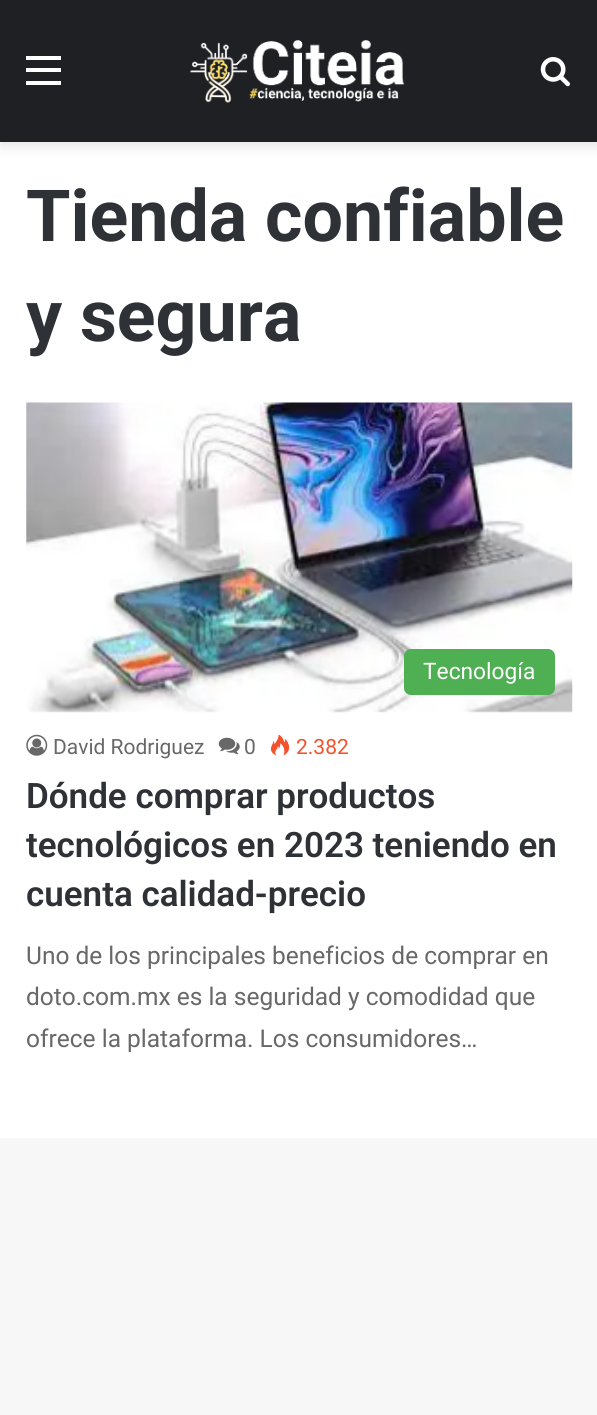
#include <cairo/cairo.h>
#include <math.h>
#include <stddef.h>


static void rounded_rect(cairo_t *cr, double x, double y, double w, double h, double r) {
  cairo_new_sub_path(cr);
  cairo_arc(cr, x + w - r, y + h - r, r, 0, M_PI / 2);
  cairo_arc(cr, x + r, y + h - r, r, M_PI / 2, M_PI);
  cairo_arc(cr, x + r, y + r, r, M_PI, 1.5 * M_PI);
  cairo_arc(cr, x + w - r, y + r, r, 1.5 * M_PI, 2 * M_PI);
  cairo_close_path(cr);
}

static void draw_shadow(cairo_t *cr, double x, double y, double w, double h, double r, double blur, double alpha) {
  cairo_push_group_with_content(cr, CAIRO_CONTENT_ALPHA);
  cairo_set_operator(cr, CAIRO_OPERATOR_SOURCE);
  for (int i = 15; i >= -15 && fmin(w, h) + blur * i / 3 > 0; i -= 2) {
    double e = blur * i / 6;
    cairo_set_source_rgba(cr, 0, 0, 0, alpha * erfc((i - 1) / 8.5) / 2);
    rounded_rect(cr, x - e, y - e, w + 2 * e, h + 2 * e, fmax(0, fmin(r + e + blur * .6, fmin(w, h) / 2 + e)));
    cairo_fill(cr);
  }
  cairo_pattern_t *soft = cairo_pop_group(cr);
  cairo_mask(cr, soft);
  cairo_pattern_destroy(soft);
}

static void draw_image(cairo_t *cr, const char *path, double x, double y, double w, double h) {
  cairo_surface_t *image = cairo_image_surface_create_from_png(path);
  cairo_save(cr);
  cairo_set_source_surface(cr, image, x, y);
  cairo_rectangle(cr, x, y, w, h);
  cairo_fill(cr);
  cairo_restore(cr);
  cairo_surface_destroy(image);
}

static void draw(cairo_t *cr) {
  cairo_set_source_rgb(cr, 247 / 255.0, 247 / 255.0, 247 / 255.0);
  cairo_paint(cr);
  cairo_set_source_rgb(cr, 1, 1, 1);
  cairo_rectangle(cr, 0, 142, 597, 996);
  cairo_fill(cr);
  cairo_set_source_rgb(cr, 0, 0, 0);
  draw_shadow(cr, 0, 5, 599, 142, 0, 6, 0.1);
  cairo_set_source_rgb(cr, 31 / 255.0, 32 / 255.0, 36 / 255.0);
  cairo_rectangle(cr, 0, 0, 597, 142);
  cairo_fill(cr);
  cairo_set_source_rgb(cr, 1, 1, 1);
  cairo_rectangle(cr, 26, 68, 35, 4);
  cairo_fill(cr);
  cairo_rectangle(cr, 26, 56, 35, 4);
  cairo_fill(cr);
  cairo_rectangle(cr, 26, 81, 35, 4);
  cairo_fill(cr);
  draw_image(cr, "images/1.png", 190, 40, 215, 63);
  draw_image(cr, "images/2.png", 540, 57, 30, 30);
  draw_image(cr, "images/3.png", 26, 402, 547, 311);
  cairo_set_source_rgb(cr, 78 / 255.0, 176 / 255.0, 82 / 255.0);
  rounded_rect(cr, 404, 649, 151, 46, 7);
  cairo_fill(cr);
  draw_image(cr, "images/4.png", 26, 734, 22, 22);
  draw_image(cr, "images/5.png", 218, 737, 22, 18);
  draw_image(cr, "images/6.png", 271, 734, 19, 22);
  cairo_select_font_face(cr, "Roboto", CAIRO_FONT_SLANT_NORMAL, CAIRO_FONT_WEIGHT_BOLD);
  cairo_set_font_size(cr, 71.75);
  cairo_set_source_rgb(cr, 46 / 255.0, 49 / 255.0, 54 / 255.0);
  cairo_move_to(cr, 26, 241);
  cairo_show_text(cr, "Tienda confiable");
  cairo_move_to(cr, 26, 341);
  cairo_show_text(cr, "y segura");
  cairo_select_font_face(cr, "Roboto", CAIRO_FONT_SLANT_NORMAL, CAIRO_FONT_WEIGHT_NORMAL);
  cairo_set_font_size(cr, 22.75);
  cairo_set_source_rgb(cr, 1, 1, 1);
  cairo_move_to(cr, 423, 679);
  cairo_show_text(cr, "Tecnología");
  cairo_set_font_size(cr, 21);
  cairo_set_source_rgb(cr, 104 / 255.0, 104 / 255.0, 104 / 255.0);
  cairo_move_to(cr, 53, 754);
  cairo_show_text(cr, "David Rodriguez");
  cairo_move_to(cr, 244, 754);
  cairo_show_text(cr, "0");
  cairo_set_source_rgb(cr, 243 / 255.0, 82 / 255.0, 44 / 255.0);
  cairo_move_to(cr, 296, 754);
  cairo_show_text(cr, "2.382");
  cairo_select_font_face(cr, "Roboto SemiBold", CAIRO_FONT_SLANT_NORMAL, CAIRO_FONT_WEIGHT_NORMAL);
  cairo_set_font_size(cr, 35);
  cairo_set_source_rgb(cr, 46 / 255.0, 49 / 255.0, 54 / 255.0);
  cairo_move_to(cr, 26, 808);
  cairo_show_text(cr, "Dónde comprar productos");
  cairo_move_to(cr, 26, 857);
  cairo_show_text(cr, "tecnológicos en 2023 teniendo en");
  cairo_move_to(cr, 26, 906);
  cairo_show_text(cr, "cuenta calidad-precio");
  cairo_select_font_face(cr, "Roboto", CAIRO_FONT_SLANT_NORMAL, CAIRO_FONT_WEIGHT_NORMAL);
  cairo_set_font_size(cr, 24.5);
  cairo_set_source_rgb(cr, 104 / 255.0, 104 / 255.0, 104 / 255.0);
  cairo_move_to(cr, 26, 964);
  cairo_show_text(cr, "Uno de los principales beneficios de comprar en");
  cairo_move_to(cr, 26, 1005);
  cairo_show_text(cr, "doto.com.mx es la seguridad y comodidad que");
  cairo_move_to(cr, 26, 1047);
  cairo_show_text(cr, "ofrece la plataforma. Los consumidores…");
}

int main(void) {
  cairo_surface_t *surface = cairo_image_surface_create(CAIRO_FORMAT_RGB24, 597, 1415);
  cairo_t *cr = cairo_create(surface);
  cairo_font_options_t *options = cairo_font_options_create();
  cairo_font_options_set_hint_metrics(options, CAIRO_HINT_METRICS_OFF);
  cairo_font_options_set_hint_style(options, CAIRO_HINT_STYLE_NONE);
  cairo_set_font_options(cr, options);
  cairo_set_miter_limit(cr, 4);
  draw(cr);
  cairo_surface_write_to_png(surface, "out.png");
  cairo_font_options_destroy(options);
  cairo_destroy(cr);
  cairo_surface_destroy(surface);
  return 0;
}
